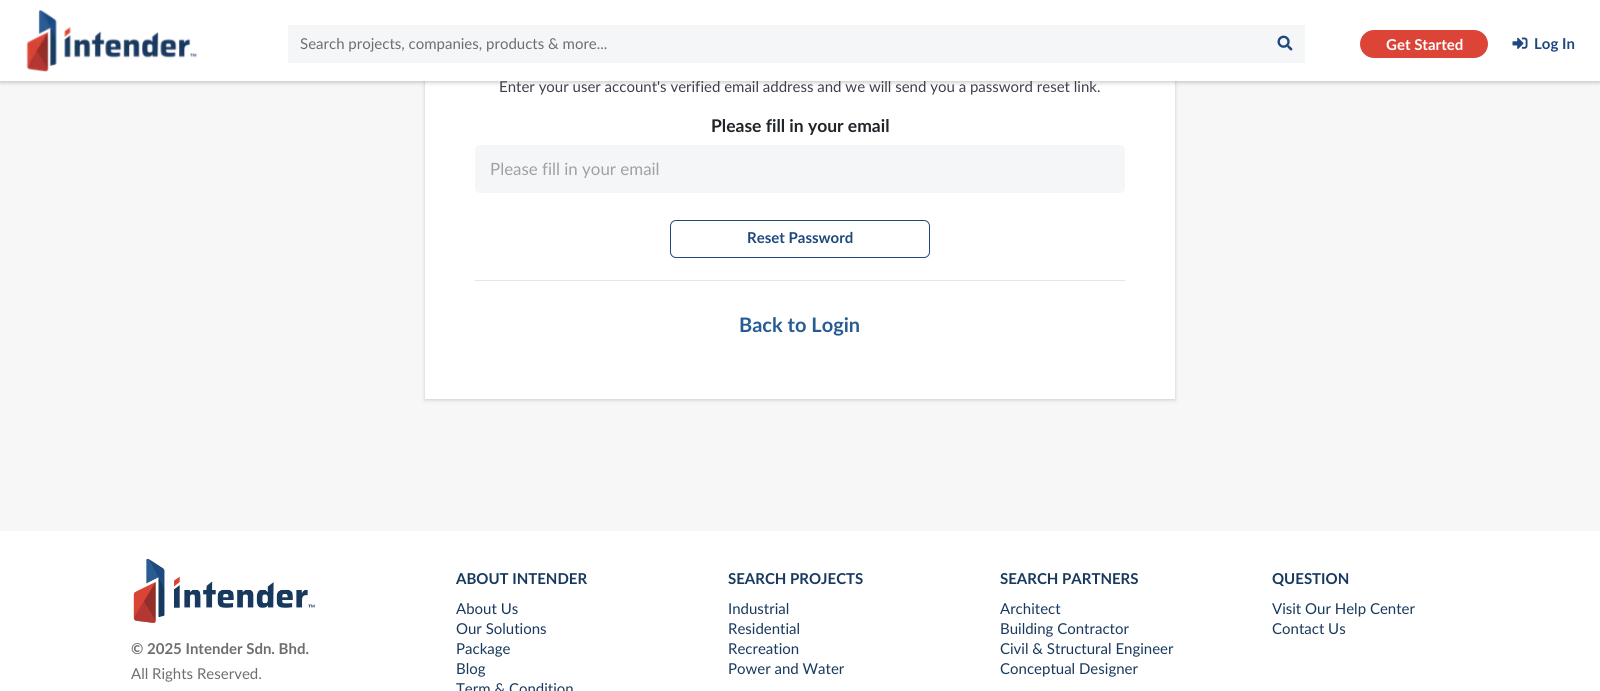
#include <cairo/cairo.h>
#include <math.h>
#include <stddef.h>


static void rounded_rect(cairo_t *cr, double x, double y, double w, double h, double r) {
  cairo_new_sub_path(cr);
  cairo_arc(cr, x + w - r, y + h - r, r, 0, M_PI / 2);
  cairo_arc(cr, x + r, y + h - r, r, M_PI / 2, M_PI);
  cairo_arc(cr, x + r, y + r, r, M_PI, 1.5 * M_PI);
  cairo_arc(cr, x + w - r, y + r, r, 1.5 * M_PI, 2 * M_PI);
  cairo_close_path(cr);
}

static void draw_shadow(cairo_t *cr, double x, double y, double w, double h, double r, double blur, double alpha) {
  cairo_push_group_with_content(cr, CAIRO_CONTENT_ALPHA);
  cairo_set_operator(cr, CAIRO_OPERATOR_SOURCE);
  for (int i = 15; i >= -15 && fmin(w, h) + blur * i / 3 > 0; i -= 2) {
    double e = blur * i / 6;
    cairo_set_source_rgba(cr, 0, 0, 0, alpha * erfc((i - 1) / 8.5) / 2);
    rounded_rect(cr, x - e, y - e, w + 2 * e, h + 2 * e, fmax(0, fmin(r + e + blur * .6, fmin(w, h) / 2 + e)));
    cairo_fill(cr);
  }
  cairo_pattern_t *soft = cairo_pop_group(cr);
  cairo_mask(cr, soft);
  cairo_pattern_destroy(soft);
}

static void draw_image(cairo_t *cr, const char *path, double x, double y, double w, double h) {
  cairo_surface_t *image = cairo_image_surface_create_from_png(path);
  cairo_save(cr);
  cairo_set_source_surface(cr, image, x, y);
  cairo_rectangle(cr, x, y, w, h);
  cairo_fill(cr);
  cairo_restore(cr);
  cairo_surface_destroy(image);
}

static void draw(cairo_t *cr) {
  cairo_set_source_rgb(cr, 247 / 255.0, 247 / 255.0, 247 / 255.0);
  cairo_paint(cr);
  cairo_set_source_rgb(cr, 0, 0, 0);
  draw_shadow(cr, 425, -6, 750, 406, 0, 2, 0.18);
  cairo_set_source_rgb(cr, 1, 1, 1);
  cairo_rectangle(cr, 425, 81, 750, 318);
  cairo_fill(cr);
  cairo_set_source_rgb(cr, 0, 0, 0);
  draw_shadow(cr, 0, 1, 1600, 82, 0, 2, 0.18);
  cairo_set_source_rgb(cr, 244 / 255.0, 246 / 255.0, 248 / 255.0);
  rounded_rect(cr, 475, 145, 650, 48, 5);
  cairo_fill(cr);
  rounded_rect(cr, 670.5, 220.5, 259, 37, 5.5);
  cairo_set_source_rgb(cr, 31 / 255.0, 72 / 255.0, 126 / 255.0);
  cairo_set_line_width(cr, 1);
  cairo_stroke(cr);
  cairo_set_source_rgb(cr, 230 / 255.0, 230 / 255.0, 230 / 255.0);
  cairo_rectangle(cr, 475, 280, 650, 1);
  cairo_fill(cr);
  cairo_set_source_rgb(cr, 1, 1, 1);
  cairo_rectangle(cr, 0, 531, 1600, 160);
  cairo_fill(cr);
  draw_image(cr, "images/4.png", 133, 558, 182, 65);
  cairo_select_font_face(cr, "Lato", CAIRO_FONT_SLANT_NORMAL, CAIRO_FONT_WEIGHT_NORMAL);
  cairo_set_font_size(cr, 15);
  cairo_set_source_rgb(cr, 62 / 255.0, 64 / 255.0, 78 / 255.0);
  cairo_move_to(cr, 499, 92);
  cairo_show_text(cr, "Enter your user account's verified email address and we will send you a password reset link.");
  cairo_set_source_rgb(cr, 1, 1, 1);
  cairo_rectangle(cr, 0, 0, 1600, 81);
  cairo_fill(cr);
  cairo_set_source_rgb(cr, 244 / 255.0, 246 / 255.0, 248 / 255.0);
  cairo_rectangle(cr, 288, 25, 1017, 38);
  cairo_fill(cr);
  draw_image(cr, "images/2.png", 1277, 35, 16, 16);
  cairo_set_source_rgb(cr, 110 / 255.0, 110 / 255.0, 110 / 255.0);
  cairo_move_to(cr, 300, 49);
  cairo_show_text(cr, "Search projects, companies, products & more...");
  cairo_select_font_face(cr, "Lato", CAIRO_FONT_SLANT_NORMAL, CAIRO_FONT_WEIGHT_BOLD);
  cairo_set_source_rgb(cr, 31 / 255.0, 72 / 255.0, 126 / 255.0);
  cairo_move_to(cr, 1534, 49);
  cairo_show_text(cr, "Log In");
  draw_image(cr, "images/3.png", 1512, 37, 16, 12);
  cairo_set_source_rgb(cr, 219 / 255.0, 68 / 255.0, 55 / 255.0);
  rounded_rect(cr, 1360, 30, 128, 28, 14);
  cairo_fill(cr);
  cairo_set_source_rgb(cr, 1, 1, 1);
  cairo_move_to(cr, 1386, 50);
  cairo_show_text(cr, "Get Started");
  draw_image(cr, "images/1.png", 26, 10, 172, 62);
  cairo_set_font_size(cr, 17.5);
  cairo_set_source_rgb(cr, 33 / 255.0, 37 / 255.0, 41 / 255.0);
  cairo_move_to(cr, 711, 132);
  cairo_show_text(cr, "Please fill in your email");
  cairo_select_font_face(cr, "Lato", CAIRO_FONT_SLANT_NORMAL, CAIRO_FONT_WEIGHT_NORMAL);
  cairo_set_font_size(cr, 16.9);
  cairo_set_source_rgb(cr, 161 / 255.0, 161 / 255.0, 161 / 255.0);
  cairo_move_to(cr, 490, 175);
  cairo_show_text(cr, "Please fill in your email");
  cairo_select_font_face(cr, "Lato", CAIRO_FONT_SLANT_NORMAL, CAIRO_FONT_WEIGHT_BOLD);
  cairo_set_font_size(cr, 15);
  cairo_set_source_rgb(cr, 31 / 255.0, 72 / 255.0, 126 / 255.0);
  cairo_move_to(cr, 747, 243);
  cairo_show_text(cr, "Reset Password");
  cairo_set_font_size(cr, 20);
  cairo_set_source_rgb(cr, 39 / 255.0, 91 / 255.0, 147 / 255.0);
  cairo_move_to(cr, 739, 332);
  cairo_show_text(cr, "Back to Login");
  cairo_set_font_size(cr, 15);
  cairo_set_source_rgb(cr, 110 / 255.0, 110 / 255.0, 110 / 255.0);
  cairo_move_to(cr, 131, 654);
  cairo_show_text(cr, "© 2025 Intender Sdn. Bhd.");
  cairo_select_font_face(cr, "Lato", CAIRO_FONT_SLANT_NORMAL, CAIRO_FONT_WEIGHT_NORMAL);
  cairo_move_to(cr, 131, 679);
  cairo_show_text(cr, "All Rights Reserved.");
  cairo_select_font_face(cr, "Lato", CAIRO_FONT_SLANT_NORMAL, CAIRO_FONT_WEIGHT_BOLD);
  cairo_set_source_rgb(cr, 24 / 255.0, 57 / 255.0, 94 / 255.0);
  cairo_move_to(cr, 456, 584);
  cairo_show_text(cr, "ABOUT INTENDER");
  cairo_select_font_face(cr, "Lato", CAIRO_FONT_SLANT_NORMAL, CAIRO_FONT_WEIGHT_NORMAL);
  cairo_move_to(cr, 456, 614);
  cairo_show_text(cr, "About Us");
  cairo_move_to(cr, 456, 634);
  cairo_show_text(cr, "Our Solutions");
  cairo_move_to(cr, 456, 654);
  cairo_show_text(cr, "Package");
  cairo_move_to(cr, 456, 674);
  cairo_show_text(cr, "Blog");
  cairo_move_to(cr, 456, 694);
  cairo_show_text(cr, "Term & Condition");
  cairo_select_font_face(cr, "Lato", CAIRO_FONT_SLANT_NORMAL, CAIRO_FONT_WEIGHT_BOLD);
  cairo_move_to(cr, 728, 584);
  cairo_show_text(cr, "SEARCH PROJECTS");
  cairo_select_font_face(cr, "Lato", CAIRO_FONT_SLANT_NORMAL, CAIRO_FONT_WEIGHT_NORMAL);
  cairo_move_to(cr, 728, 614);
  cairo_show_text(cr, "Industrial");
  cairo_move_to(cr, 728, 634);
  cairo_show_text(cr, "Residential");
  cairo_move_to(cr, 728, 654);
  cairo_show_text(cr, "Recreation");
  cairo_move_to(cr, 728, 674);
  cairo_show_text(cr, "Power and Water");
  cairo_select_font_face(cr, "Lato", CAIRO_FONT_SLANT_NORMAL, CAIRO_FONT_WEIGHT_BOLD);
  cairo_move_to(cr, 1000, 584);
  cairo_show_text(cr, "SEARCH PARTNERS");
  cairo_select_font_face(cr, "Lato", CAIRO_FONT_SLANT_NORMAL, CAIRO_FONT_WEIGHT_NORMAL);
  cairo_move_to(cr, 1000, 614);
  cairo_show_text(cr, "Architect");
  cairo_move_to(cr, 1000, 634);
  cairo_show_text(cr, "Building Contractor");
  cairo_move_to(cr, 1000, 654);
  cairo_show_text(cr, "Civil & Structural Engineer");
  cairo_move_to(cr, 1000, 674);
  cairo_show_text(cr, "Conceptual Designer");
  cairo_select_font_face(cr, "Lato", CAIRO_FONT_SLANT_NORMAL, CAIRO_FONT_WEIGHT_BOLD);
  cairo_move_to(cr, 1272, 584);
  cairo_show_text(cr, "QUESTION");
  cairo_select_font_face(cr, "Lato", CAIRO_FONT_SLANT_NORMAL, CAIRO_FONT_WEIGHT_NORMAL);
  cairo_move_to(cr, 1272, 614);
  cairo_show_text(cr, "Visit Our Help Center");
  cairo_move_to(cr, 1272, 634);
  cairo_show_text(cr, "Contact Us");
}

int main(void) {
  cairo_surface_t *surface = cairo_image_surface_create(CAIRO_FORMAT_RGB24, 1600, 691);
  cairo_t *cr = cairo_create(surface);
  cairo_font_options_t *options = cairo_font_options_create();
  cairo_font_options_set_hint_metrics(options, CAIRO_HINT_METRICS_OFF);
  cairo_font_options_set_hint_style(options, CAIRO_HINT_STYLE_NONE);
  cairo_set_font_options(cr, options);
  cairo_set_miter_limit(cr, 4);
  draw(cr);
  cairo_surface_write_to_png(surface, "out.png");
  cairo_font_options_destroy(options);
  cairo_destroy(cr);
  cairo_surface_destroy(surface);
  return 0;
}
